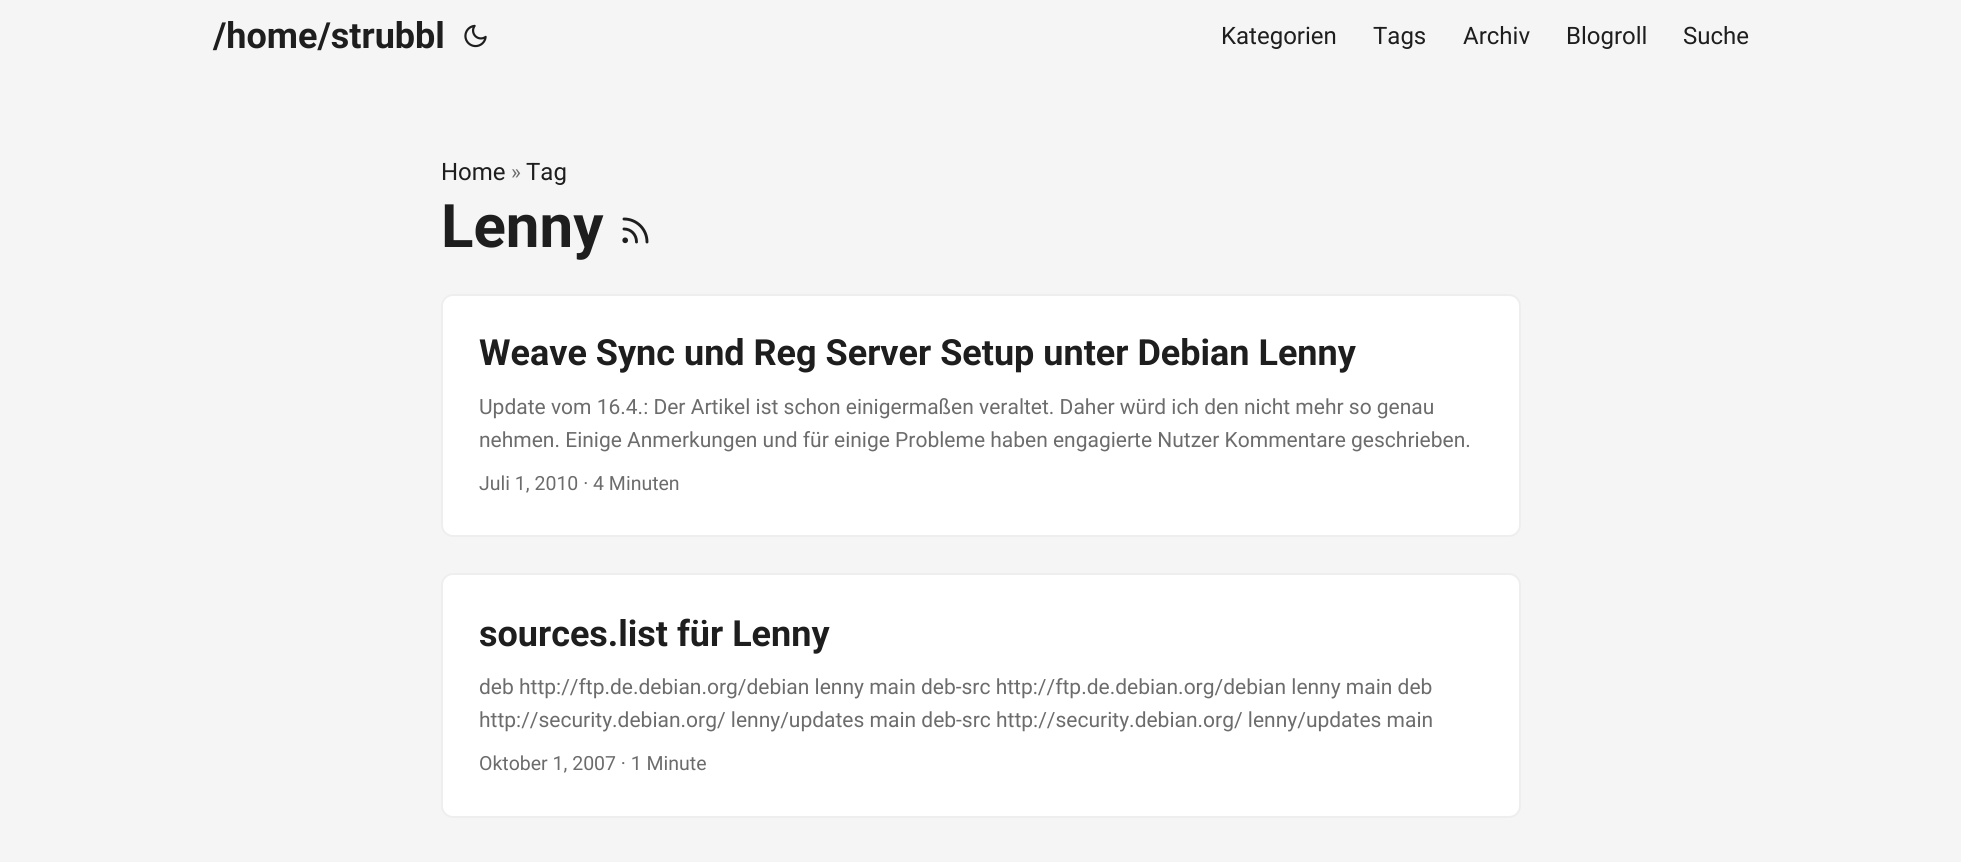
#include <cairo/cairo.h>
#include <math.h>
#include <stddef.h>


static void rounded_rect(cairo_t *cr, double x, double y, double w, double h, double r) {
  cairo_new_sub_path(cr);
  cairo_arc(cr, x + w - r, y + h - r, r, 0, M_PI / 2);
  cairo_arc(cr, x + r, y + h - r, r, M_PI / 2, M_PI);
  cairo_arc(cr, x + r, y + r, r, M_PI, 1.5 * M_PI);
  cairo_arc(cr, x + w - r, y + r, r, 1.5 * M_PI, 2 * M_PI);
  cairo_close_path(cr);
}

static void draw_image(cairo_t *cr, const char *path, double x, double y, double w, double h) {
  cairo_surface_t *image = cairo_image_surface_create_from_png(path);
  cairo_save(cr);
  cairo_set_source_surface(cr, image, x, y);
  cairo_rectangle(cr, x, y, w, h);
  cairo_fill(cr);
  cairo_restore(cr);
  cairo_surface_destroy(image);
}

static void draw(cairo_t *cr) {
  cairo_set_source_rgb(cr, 245 / 255.0, 245 / 255.0, 245 / 255.0);
  cairo_paint(cr);
  draw_image(cr, "images/1.png", 464, 24, 23, 24);
  cairo_new_path(cr);
  cairo_move_to(cr, 624, 229);
  cairo_curve_to(cr, 631, 229, 636.5, 234.5, 636.5, 242);
  cairo_move_to(cr, 624, 219);
  cairo_curve_to(cr, 636.5, 219, 647, 229, 647, 242);
  cairo_set_source_rgb(cr, 30 / 255.0, 30 / 255.0, 30 / 255.0);
  cairo_set_line_width(cr, 2.9);
  cairo_set_line_cap(cr, CAIRO_LINE_CAP_ROUND);
  cairo_set_line_join(cr, CAIRO_LINE_JOIN_ROUND);
  cairo_stroke(cr);
  cairo_arc(cr, 625.2, 240.3, 1.4, 0, 2 * M_PI);
  cairo_set_line_cap(cr, CAIRO_LINE_CAP_BUTT);
  cairo_set_line_join(cr, CAIRO_LINE_JOIN_MITER);
  cairo_stroke(cr);
  cairo_set_source_rgb(cr, 1, 1, 1);
  rounded_rect(cr, 442, 295, 1078, 241, 11);
  cairo_fill_preserve(cr);
  cairo_set_source_rgb(cr, 238 / 255.0, 238 / 255.0, 238 / 255.0);
  cairo_set_line_width(cr, 2);
  cairo_stroke(cr);
  cairo_set_source_rgb(cr, 1, 1, 1);
  rounded_rect(cr, 442, 574, 1078, 243, 11);
  cairo_fill_preserve(cr);
  cairo_set_source_rgb(cr, 238 / 255.0, 238 / 255.0, 238 / 255.0);
  cairo_stroke(cr);
  cairo_select_font_face(cr, "Roboto", CAIRO_FONT_SLANT_NORMAL, CAIRO_FONT_WEIGHT_BOLD);
  cairo_set_font_size(cr, 36);
  cairo_set_source_rgb(cr, 30 / 255.0, 30 / 255.0, 30 / 255.0);
  cairo_move_to(cr, 213, 48);
  cairo_show_text(cr, "/home/strubbl");
  cairo_select_font_face(cr, "Roboto", CAIRO_FONT_SLANT_NORMAL, CAIRO_FONT_WEIGHT_NORMAL);
  cairo_set_font_size(cr, 24);
  cairo_move_to(cr, 1221, 44);
  cairo_show_text(cr, "Kategorien");
  cairo_move_to(cr, 1373, 44);
  cairo_show_text(cr, "Tags");
  cairo_move_to(cr, 1463, 44);
  cairo_show_text(cr, "Archiv");
  cairo_move_to(cr, 1566, 44);
  cairo_show_text(cr, "Blogroll");
  cairo_move_to(cr, 1683, 44);
  cairo_show_text(cr, "Suche");
  cairo_move_to(cr, 441, 180);
  cairo_show_text(cr, "Home");
  cairo_set_font_size(cr, 21);
  cairo_set_source_rgb(cr, 108 / 255.0, 108 / 255.0, 108 / 255.0);
  cairo_move_to(cr, 511, 179);
  cairo_show_text(cr, "»");
  cairo_set_font_size(cr, 24);
  cairo_set_source_rgb(cr, 30 / 255.0, 30 / 255.0, 30 / 255.0);
  cairo_move_to(cr, 526, 180);
  cairo_show_text(cr, "Tag");
  cairo_select_font_face(cr, "Roboto", CAIRO_FONT_SLANT_NORMAL, CAIRO_FONT_WEIGHT_BOLD);
  cairo_set_font_size(cr, 60);
  cairo_move_to(cr, 441, 247);
  cairo_show_text(cr, "Lenny");
  cairo_set_font_size(cr, 36);
  cairo_move_to(cr, 479, 365);
  cairo_show_text(cr, "Weave Sync und Reg Server Setup unter Debian Lenny");
  cairo_select_font_face(cr, "Roboto", CAIRO_FONT_SLANT_NORMAL, CAIRO_FONT_WEIGHT_NORMAL);
  cairo_set_font_size(cr, 21);
  cairo_set_source_rgb(cr, 108 / 255.0, 108 / 255.0, 108 / 255.0);
  cairo_move_to(cr, 479, 414);
  cairo_show_text(cr, "Update vom 16.4.: Der Artikel ist schon einigermaßen veraltet. Daher würd ich den nicht mehr so genau");
  cairo_move_to(cr, 479, 447);
  cairo_show_text(cr, "nehmen. Einige Anmerkungen und für einige Probleme haben engagierte Nutzer Kommentare geschrieben.");
  cairo_set_font_size(cr, 19.5);
  cairo_move_to(cr, 479, 490);
  cairo_show_text(cr, "Juli 1, 2010 · 4 Minuten");
  cairo_select_font_face(cr, "Roboto", CAIRO_FONT_SLANT_NORMAL, CAIRO_FONT_WEIGHT_BOLD);
  cairo_set_font_size(cr, 36);
  cairo_set_source_rgb(cr, 30 / 255.0, 30 / 255.0, 30 / 255.0);
  cairo_move_to(cr, 479, 646);
  cairo_show_text(cr, "sources.list für Lenny");
  cairo_select_font_face(cr, "Roboto", CAIRO_FONT_SLANT_NORMAL, CAIRO_FONT_WEIGHT_NORMAL);
  cairo_set_font_size(cr, 21);
  cairo_set_source_rgb(cr, 108 / 255.0, 108 / 255.0, 108 / 255.0);
  cairo_move_to(cr, 479, 694);
  cairo_show_text(cr, "deb http://ftp.de.debian.org/debian lenny main deb-src http://ftp.de.debian.org/debian lenny main deb");
  cairo_move_to(cr, 479, 727);
  cairo_show_text(cr, "http://security.debian.org/ lenny/updates main deb-src http://security.debian.org/ lenny/updates main");
  cairo_set_font_size(cr, 19.5);
  cairo_move_to(cr, 479, 770);
  cairo_show_text(cr, "Oktober 1, 2007 · 1 Minute");
}

int main(void) {
  cairo_surface_t *surface = cairo_image_surface_create(CAIRO_FORMAT_RGB24, 1961, 862);
  cairo_t *cr = cairo_create(surface);
  cairo_font_options_t *options = cairo_font_options_create();
  cairo_font_options_set_hint_metrics(options, CAIRO_HINT_METRICS_OFF);
  cairo_font_options_set_hint_style(options, CAIRO_HINT_STYLE_NONE);
  cairo_set_font_options(cr, options);
  cairo_set_miter_limit(cr, 4);
  draw(cr);
  cairo_surface_write_to_png(surface, "out.png");
  cairo_font_options_destroy(options);
  cairo_destroy(cr);
  cairo_surface_destroy(surface);
  return 0;
}
